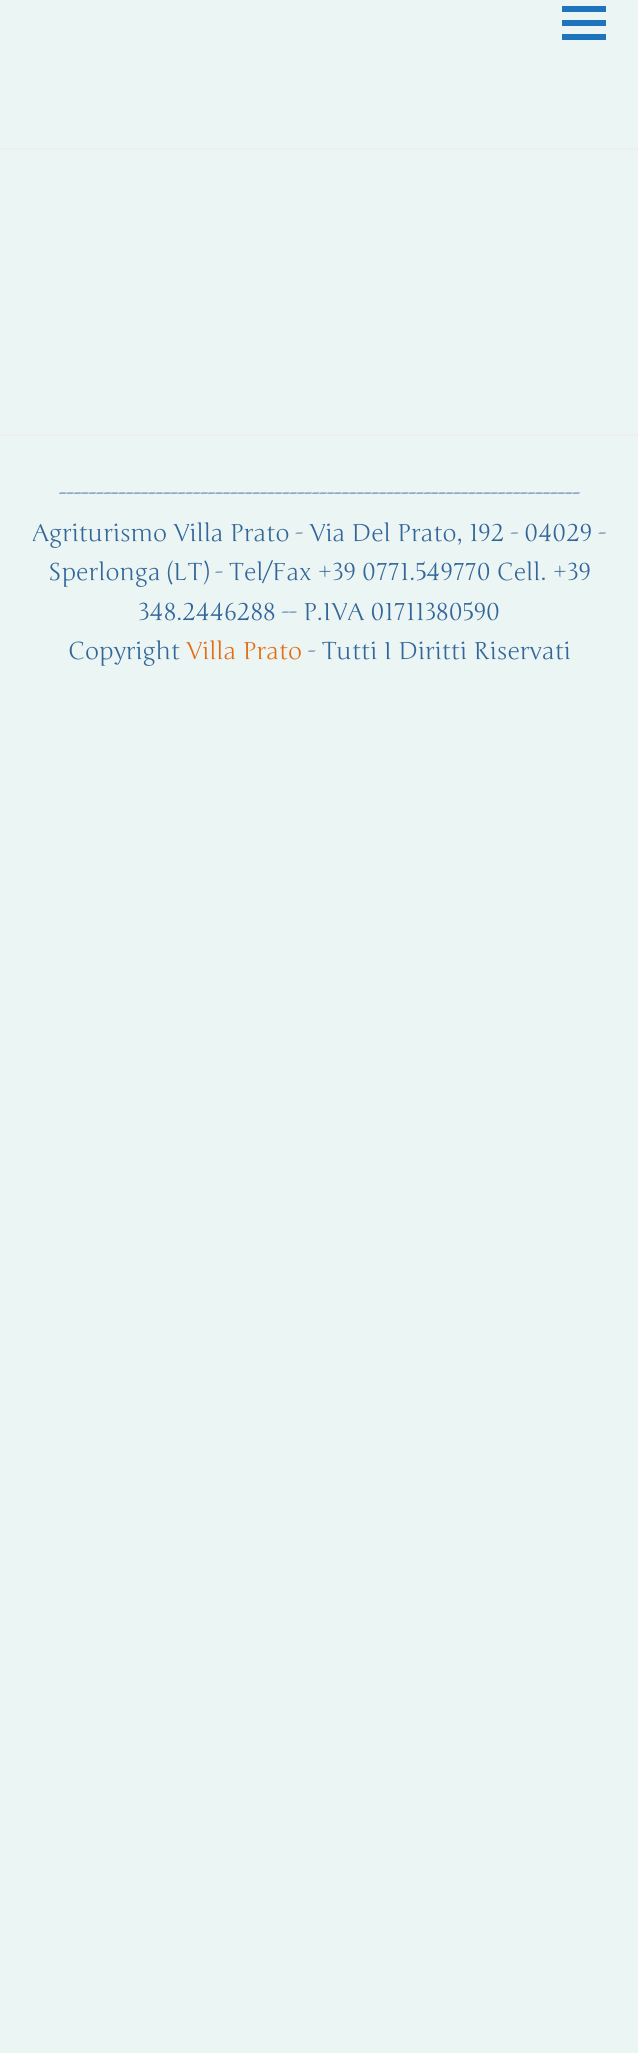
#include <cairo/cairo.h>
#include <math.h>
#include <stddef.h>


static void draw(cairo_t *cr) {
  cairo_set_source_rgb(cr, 235 / 255.0, 245 / 255.0, 244 / 255.0);
  cairo_paint(cr);
  cairo_set_source_rgb(cr, 30 / 255.0, 115 / 255.0, 190 / 255.0);
  cairo_rectangle(cr, 562, 20, 44, 6);
  cairo_fill(cr);
  cairo_rectangle(cr, 562, 6, 44, 6);
  cairo_fill(cr);
  cairo_rectangle(cr, 562, 34, 44, 6);
  cairo_fill(cr);
  cairo_set_source_rgb(cr, 238 / 255.0, 238 / 255.0, 238 / 255.0);
  cairo_rectangle(cr, 0, 148, 638, 2);
  cairo_fill(cr);
  cairo_rectangle(cr, 0, 434, 638, 2);
  cairo_fill(cr);
  cairo_select_font_face(cr, "Junge", CAIRO_FONT_SLANT_NORMAL, CAIRO_FONT_WEIGHT_NORMAL);
  cairo_set_font_size(cr, 24);
  cairo_set_source_rgb(cr, 51 / 255.0, 102 / 255.0, 153 / 255.0);
  cairo_move_to(cr, 59, 501);
  cairo_show_text(cr, "----------------------------------------------------------------------");
  cairo_move_to(cr, 32, 541);
  cairo_show_text(cr, "Agriturismo Villa Prato - Via Del Prato, 192 - 04029 -");
  cairo_move_to(cr, 48, 580);
  cairo_show_text(cr, "Sperlonga (LT) - Tel/Fax +39 0771.549770 Cell. +39");
  cairo_move_to(cr, 138, 620);
  cairo_show_text(cr, "348.2446288 -- P.IVA 01711380590");
  cairo_move_to(cr, 68, 659);
  cairo_show_text(cr, "Copyright");
  cairo_set_source_rgb(cr, 229 / 255.0, 108 / 255.0, 16 / 255.0);
  cairo_move_to(cr, 186, 659);
  cairo_show_text(cr, "Villa Prato");
  cairo_set_source_rgb(cr, 51 / 255.0, 102 / 255.0, 153 / 255.0);
  cairo_move_to(cr, 308, 659);
  cairo_show_text(cr, "- Tutti I Diritti Riservati");
}

int main(void) {
  cairo_surface_t *surface = cairo_image_surface_create(CAIRO_FORMAT_RGB24, 638, 2053);
  cairo_t *cr = cairo_create(surface);
  cairo_font_options_t *options = cairo_font_options_create();
  cairo_font_options_set_hint_metrics(options, CAIRO_HINT_METRICS_OFF);
  cairo_font_options_set_hint_style(options, CAIRO_HINT_STYLE_NONE);
  cairo_set_font_options(cr, options);
  cairo_set_miter_limit(cr, 4);
  draw(cr);
  cairo_surface_write_to_png(surface, "out.png");
  cairo_font_options_destroy(options);
  cairo_destroy(cr);
  cairo_surface_destroy(surface);
  return 0;
}
